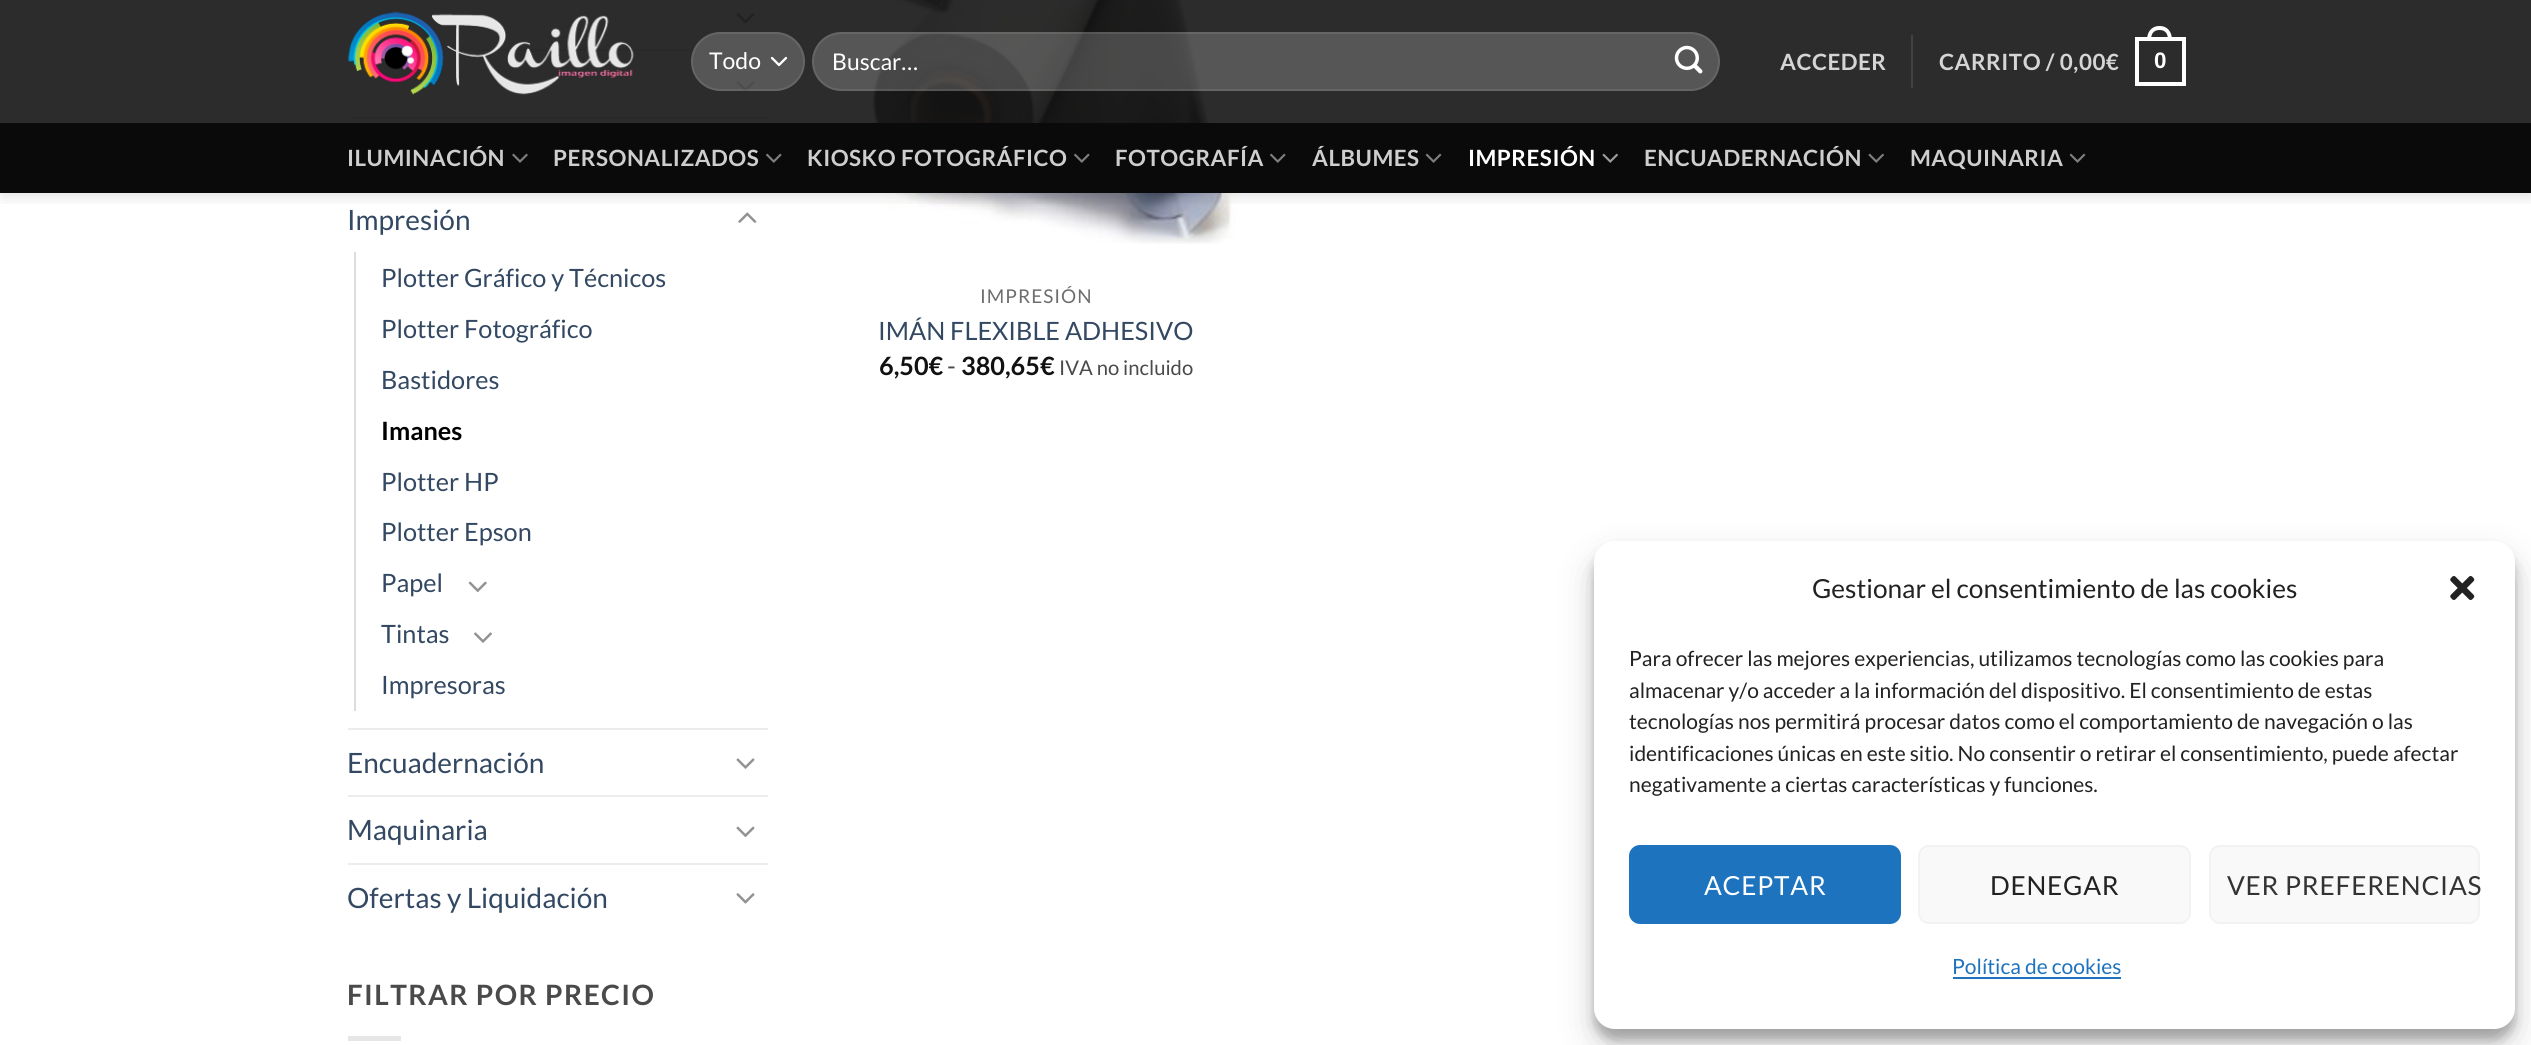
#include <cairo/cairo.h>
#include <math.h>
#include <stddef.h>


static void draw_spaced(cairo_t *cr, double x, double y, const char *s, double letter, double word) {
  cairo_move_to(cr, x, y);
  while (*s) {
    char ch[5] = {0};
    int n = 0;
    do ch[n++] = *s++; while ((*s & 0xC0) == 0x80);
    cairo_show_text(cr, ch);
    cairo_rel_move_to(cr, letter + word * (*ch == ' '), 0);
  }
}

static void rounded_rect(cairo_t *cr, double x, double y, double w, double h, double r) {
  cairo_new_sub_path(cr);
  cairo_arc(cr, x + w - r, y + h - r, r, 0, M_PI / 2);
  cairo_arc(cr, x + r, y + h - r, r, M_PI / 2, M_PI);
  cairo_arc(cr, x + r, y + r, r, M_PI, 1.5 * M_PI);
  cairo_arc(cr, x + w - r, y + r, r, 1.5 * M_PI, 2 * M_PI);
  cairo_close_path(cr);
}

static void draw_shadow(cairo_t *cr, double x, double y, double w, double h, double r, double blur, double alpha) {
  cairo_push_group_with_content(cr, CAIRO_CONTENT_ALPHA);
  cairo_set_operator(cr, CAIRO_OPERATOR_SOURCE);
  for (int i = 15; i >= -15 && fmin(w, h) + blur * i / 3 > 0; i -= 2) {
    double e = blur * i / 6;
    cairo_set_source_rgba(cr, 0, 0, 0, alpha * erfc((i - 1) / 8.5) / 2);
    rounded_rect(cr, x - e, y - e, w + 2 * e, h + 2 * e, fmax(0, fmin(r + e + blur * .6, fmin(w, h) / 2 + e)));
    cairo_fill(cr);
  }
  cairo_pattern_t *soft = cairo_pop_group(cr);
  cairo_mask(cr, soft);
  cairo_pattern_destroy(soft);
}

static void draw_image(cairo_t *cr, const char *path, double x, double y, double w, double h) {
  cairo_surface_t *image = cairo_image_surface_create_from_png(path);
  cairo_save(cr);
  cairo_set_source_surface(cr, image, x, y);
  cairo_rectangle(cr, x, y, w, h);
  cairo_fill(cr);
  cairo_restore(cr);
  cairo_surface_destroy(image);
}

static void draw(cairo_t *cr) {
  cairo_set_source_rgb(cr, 1, 1, 1);
  cairo_paint(cr);
  draw_image(cr, "images/8.png", 736, 12, 19, 12);
  cairo_set_source_rgb(cr, 236 / 255.0, 236 / 255.0, 236 / 255.0);
  cairo_rectangle(cr, 348, 49, 420, 2);
  cairo_fill(cr);
  draw_image(cr, "images/9.png", 736, 81, 19, 11);
  cairo_rectangle(cr, 348, 117, 420, 2);
  cairo_fill(cr);
  draw_image(cr, "images/10.png", 738, 212, 19, 11);
  draw_image(cr, "images/15.png", 842, 0, 394, 244);
  cairo_save(cr);
  cairo_rectangle(cr, 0, 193, 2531, 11);
  cairo_clip(cr);
  cairo_set_source_rgb(cr, 0, 0, 0);
  draw_shadow(cr, 2, 2, 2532, 192, 0, 9, 0.15);
  cairo_restore(cr);
  cairo_set_source_rgba(cr, 22 / 255.0, 22 / 255.0, 22 / 255.0, 0.9);
  cairo_rectangle(cr, 0, 0, 2531, 123);
  cairo_fill(cr);
  draw_image(cr, "images/1.png", 347, 11, 287, 84);
  cairo_set_source_rgba(cr, 1, 1, 1, 0.2);
  rounded_rect(cr, 691, 32, 114, 59, 29.5);
  cairo_fill(cr);
  cairo_new_path(cr);
  cairo_move_to(cr, 772, 58);
  cairo_line_to(cr, 779, 65);
  cairo_line_to(cr, 786, 58);
  cairo_set_source_rgb(cr, 1, 1, 1);
  cairo_set_line_width(cr, 2.3);
  cairo_set_line_cap(cr, CAIRO_LINE_CAP_ROUND);
  cairo_set_line_join(cr, CAIRO_LINE_JOIN_ROUND);
  cairo_stroke(cr);
  rounded_rect(cr, 692, 33, 112, 57, 28.5);
  cairo_set_source_rgba(cr, 1, 1, 1, 0.09);
  cairo_set_line_width(cr, 2);
  cairo_set_line_cap(cr, CAIRO_LINE_CAP_BUTT);
  cairo_set_line_join(cr, CAIRO_LINE_JOIN_MITER);
  cairo_stroke(cr);
  cairo_set_source_rgba(cr, 1, 1, 1, 0.2);
  rounded_rect(cr, 812, 32, 908, 59, 29.5);
  cairo_fill(cr);
  rounded_rect(cr, 813, 33, 906, 57, 28.5);
  cairo_set_source_rgba(cr, 1, 1, 1, 0.09);
  cairo_stroke(cr);
  draw_image(cr, "images/2.png", 1674, 45, 29, 29);
  cairo_set_source_rgb(cr, 66 / 255.0, 66 / 255.0, 66 / 255.0);
  cairo_rectangle(cr, 1911, 35, 2, 53);
  cairo_fill(cr);
  cairo_rectangle(cr, 2137, 39, 47, 45);
  cairo_set_source_rgb(cr, 1, 1, 1);
  cairo_set_line_width(cr, 4);
  cairo_stroke(cr);
  cairo_set_fill_rule(cr, CAIRO_FILL_RULE_EVEN_ODD);
  cairo_new_path(cr);
  cairo_move_to(cr, 2159.5, 26);
  cairo_curve_to(cr, 2168, 26, 2172, 32.5, 2172, 40);
  cairo_line_to(cr, 2147, 40);
  cairo_curve_to(cr, 2147, 32.5, 2151, 26, 2159.5, 26);
  cairo_close_path(cr);
  cairo_move_to(cr, 2159.5, 30);
  cairo_curve_to(cr, 2166, 30, 2168, 34.5, 2168, 40);
  cairo_line_to(cr, 2151, 40);
  cairo_curve_to(cr, 2151, 34.5, 2153, 30, 2159.5, 30);
  cairo_close_path(cr);
  cairo_fill(cr);
  cairo_set_source_rgb(cr, 10 / 255.0, 10 / 255.0, 10 / 255.0);
  cairo_rectangle(cr, 0, 123, 2531, 70);
  cairo_fill(cr);
  draw_image(cr, "images/3.png", 512, 153, 16, 10);
  draw_image(cr, "images/4.png", 766, 153, 16, 10);
  draw_image(cr, "images/4.png", 1074, 153, 16, 10);
  draw_image(cr, "images/4.png", 1270, 153, 16, 10);
  draw_image(cr, "images/5.png", 1425, 153, 17, 10);
  draw_image(cr, "images/6.png", 1602, 153, 16, 10);
  draw_image(cr, "images/7.png", 1868, 153, 16, 10);
  draw_image(cr, "images/5.png", 2069, 153, 17, 10);
  cairo_set_source_rgb(cr, 221 / 255.0, 221 / 255.0, 221 / 255.0);
  cairo_rectangle(cr, 354, 252, 2, 459);
  cairo_fill(cr);
  draw_image(cr, "images/11.png", 468, 581, 19, 12);
  draw_image(cr, "images/12.png", 474, 632, 18, 11);
  cairo_set_source_rgb(cr, 236 / 255.0, 236 / 255.0, 236 / 255.0);
  cairo_rectangle(cr, 348, 728, 420, 2);
  cairo_fill(cr);
  draw_image(cr, "images/13.png", 736, 758, 19, 11);
  cairo_rectangle(cr, 348, 795, 420, 2);
  cairo_fill(cr);
  draw_image(cr, "images/14.png", 736, 826, 19, 12);
  cairo_rectangle(cr, 348, 863, 420, 2);
  cairo_fill(cr);
  draw_image(cr, "images/9.png", 736, 893, 19, 11);
  cairo_set_source_rgb(cr, 230 / 255.0, 230 / 255.0, 230 / 255.0);
  cairo_rectangle(cr, 348, 1036, 53, 5);
  cairo_fill(cr);
  cairo_set_source_rgb(cr, 0, 0, 0);
  draw_shadow(cr, 1594, 551, 921, 489, 21, 5, 0.23);
  draw_shadow(cr, 1594, 558, 921, 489, 21, 17.5, 0.19);
  cairo_set_source_rgb(cr, 1, 1, 1);
  rounded_rect(cr, 1594, 541, 921, 488, 21);
  cairo_fill(cr);
  draw_image(cr, "images/16.png", 2450, 576, 25, 24);
  cairo_set_source_rgb(cr, 30 / 255.0, 115 / 255.0, 190 / 255.0);
  rounded_rect(cr, 1630, 846, 270, 77, 10);
  cairo_fill_preserve(cr);
  cairo_set_line_width(cr, 2);
  cairo_stroke(cr);
  cairo_set_source_rgb(cr, 249 / 255.0, 249 / 255.0, 249 / 255.0);
  rounded_rect(cr, 1919, 846, 271, 77, 10);
  cairo_fill_preserve(cr);
  cairo_set_source_rgb(cr, 242 / 255.0, 242 / 255.0, 242 / 255.0);
  cairo_stroke(cr);
  cairo_set_source_rgb(cr, 249 / 255.0, 249 / 255.0, 249 / 255.0);
  rounded_rect(cr, 2210, 846, 269, 77, 10);
  cairo_fill_preserve(cr);
  cairo_set_source_rgb(cr, 242 / 255.0, 242 / 255.0, 242 / 255.0);
  cairo_stroke(cr);
  cairo_set_source_rgb(cr, 30 / 255.0, 115 / 255.0, 190 / 255.0);
  cairo_rectangle(cr, 1953, 977, 168, 2);
  cairo_fill(cr);
  cairo_select_font_face(cr, "Lato", CAIRO_FONT_SLANT_NORMAL, CAIRO_FONT_WEIGHT_NORMAL);
  cairo_set_font_size(cr, 23);
  cairo_set_source_rgb(cr, 1, 1, 1);
  cairo_move_to(cr, 709, 69);
  cairo_show_text(cr, "Todo");
  cairo_move_to(cr, 832, 70);
  cairo_show_text(cr, "Buscar…");
  cairo_select_font_face(cr, "Lato", CAIRO_FONT_SLANT_NORMAL, CAIRO_FONT_WEIGHT_BOLD);
  cairo_set_font_size(cr, 22.4);
  cairo_set_source_rgb(cr, 213 / 255.0, 213 / 255.0, 213 / 255.0);
  draw_spaced(cr, 1780, 70, "ACCEDER", 0.5, 0);
  draw_spaced(cr, 1939, 70, "CARRITO / 0,00€", 0.5, 0);
  cairo_select_font_face(cr, "Liberation Sans", CAIRO_FONT_SLANT_NORMAL, CAIRO_FONT_WEIGHT_BOLD);
  cairo_set_source_rgb(cr, 1, 1, 1);
  draw_spaced(cr, 2154, 68, "0", 0.5, 0);
  cairo_select_font_face(cr, "Lato", CAIRO_FONT_SLANT_NORMAL, CAIRO_FONT_WEIGHT_BOLD);
  cairo_set_source_rgb(cr, 206 / 255.0, 206 / 255.0, 206 / 255.0);
  draw_spaced(cr, 347, 166, "ILUMINACIÓN", 0.5, 0);
  draw_spaced(cr, 553, 166, "PERSONALIZADOS", 0.5, 0);
  draw_spaced(cr, 807, 166, "KIOSKO FOTOGRÁFICO", 0.5, 0);
  draw_spaced(cr, 1115, 166, "FOTOGRAFÍA", 0.5, 0);
  draw_spaced(cr, 1312, 166, "ÁLBUMES", 0.5, 0);
  cairo_set_source_rgb(cr, 1, 1, 1);
  draw_spaced(cr, 1468, 166, "IMPRESIÓN", 0.5, 0);
  cairo_set_source_rgb(cr, 206 / 255.0, 206 / 255.0, 206 / 255.0);
  draw_spaced(cr, 1644, 166, "ENCUADERNACIÓN", 0.5, 0);
  draw_spaced(cr, 1910, 166, "MAQUINARIA", 0.5, 0);
  cairo_select_font_face(cr, "Lato", CAIRO_FONT_SLANT_NORMAL, CAIRO_FONT_WEIGHT_NORMAL);
  cairo_set_font_size(cr, 28);
  cairo_set_source_rgb(cr, 51 / 255.0, 72 / 255.0, 98 / 255.0);
  cairo_move_to(cr, 347, 230);
  cairo_show_text(cr, "Impresión");
  cairo_set_font_size(cr, 25.25);
  cairo_move_to(cr, 381, 287);
  cairo_show_text(cr, "Plotter Gráfico y Técnicos");
  cairo_move_to(cr, 381, 338);
  cairo_show_text(cr, "Plotter Fotográfico");
  cairo_move_to(cr, 381, 389);
  cairo_show_text(cr, "Bastidores");
  cairo_select_font_face(cr, "Lato", CAIRO_FONT_SLANT_NORMAL, CAIRO_FONT_WEIGHT_BOLD);
  cairo_set_source_rgb(cr, 0, 0, 0);
  cairo_move_to(cr, 381, 440);
  cairo_show_text(cr, "Imanes");
  cairo_select_font_face(cr, "Lato", CAIRO_FONT_SLANT_NORMAL, CAIRO_FONT_WEIGHT_NORMAL);
  cairo_set_source_rgb(cr, 51 / 255.0, 72 / 255.0, 98 / 255.0);
  cairo_move_to(cr, 381, 491);
  cairo_show_text(cr, "Plotter HP");
  cairo_move_to(cr, 381, 541);
  cairo_show_text(cr, "Plotter Epson");
  cairo_move_to(cr, 381, 592);
  cairo_show_text(cr, "Papel");
  cairo_move_to(cr, 381, 643);
  cairo_show_text(cr, "Tintas");
  cairo_move_to(cr, 381, 694);
  cairo_show_text(cr, "Impresoras");
  cairo_set_font_size(cr, 28);
  cairo_move_to(cr, 347, 773);
  cairo_show_text(cr, "Encuadernación");
  cairo_move_to(cr, 347, 840);
  cairo_show_text(cr, "Maquinaria");
  cairo_move_to(cr, 347, 908);
  cairo_show_text(cr, "Ofertas y Liquidación");
  cairo_select_font_face(cr, "Lato", CAIRO_FONT_SLANT_NORMAL, CAIRO_FONT_WEIGHT_BOLD);
  cairo_set_source_rgb(cr, 74 / 255.0, 74 / 255.0, 74 / 255.0);
  draw_spaced(cr, 347, 1005, "FILTRAR POR PRECIO", 1.4, 0);
  cairo_select_font_face(cr, "Lato", CAIRO_FONT_SLANT_NORMAL, CAIRO_FONT_WEIGHT_NORMAL);
  cairo_set_font_size(cr, 19);
  cairo_set_source_rgb(cr, 110 / 255.0, 110 / 255.0, 110 / 255.0);
  draw_spaced(cr, 980, 303, "IMPRESIÓN", 1, 0);
  cairo_set_font_size(cr, 25.25);
  cairo_set_source_rgb(cr, 51 / 255.0, 72 / 255.0, 98 / 255.0);
  cairo_move_to(cr, 878, 340);
  cairo_show_text(cr, "IMÁN FLEXIBLE ADHESIVO");
  cairo_select_font_face(cr, "Lato", CAIRO_FONT_SLANT_NORMAL, CAIRO_FONT_WEIGHT_BOLD);
  cairo_set_source_rgb(cr, 17 / 255.0, 17 / 255.0, 17 / 255.0);
  cairo_move_to(cr, 879, 375);
  cairo_show_text(cr, "6,50€");
  cairo_select_font_face(cr, "Lato", CAIRO_FONT_SLANT_NORMAL, CAIRO_FONT_WEIGHT_NORMAL);
  cairo_set_source_rgb(cr, 74 / 255.0, 74 / 255.0, 74 / 255.0);
  cairo_move_to(cr, 947, 375);
  cairo_show_text(cr, "-");
  cairo_select_font_face(cr, "Lato", CAIRO_FONT_SLANT_NORMAL, CAIRO_FONT_WEIGHT_BOLD);
  cairo_set_source_rgb(cr, 17 / 255.0, 17 / 255.0, 17 / 255.0);
  cairo_move_to(cr, 961, 375);
  cairo_show_text(cr, "380,65€");
  cairo_select_font_face(cr, "Lato", CAIRO_FONT_SLANT_NORMAL, CAIRO_FONT_WEIGHT_NORMAL);
  cairo_set_font_size(cr, 20.25);
  cairo_set_source_rgb(cr, 74 / 255.0, 74 / 255.0, 74 / 255.0);
  cairo_move_to(cr, 1059, 375);
  cairo_show_text(cr, "IVA no incluido");
  cairo_set_font_size(cr, 26.25);
  cairo_set_source_rgb(cr, 34 / 255.0, 34 / 255.0, 34 / 255.0);
  cairo_move_to(cr, 1812, 598);
  cairo_show_text(cr, "Gestionar el consentimiento de las cookies");
  cairo_set_font_size(cr, 21);
  cairo_move_to(cr, 1629, 666);
  cairo_show_text(cr, "Para ofrecer las mejores experiencias, utilizamos tecnologías como las cookies para");
  cairo_move_to(cr, 1629, 698);
  cairo_show_text(cr, "almacenar y/o acceder a la información del dispositivo. El consentimiento de estas");
  cairo_move_to(cr, 1629, 729);
  cairo_show_text(cr, "tecnologías nos permitirá procesar datos como el comportamiento de navegación o las");
  cairo_move_to(cr, 1629, 761);
  cairo_show_text(cr, "identificaciones únicas en este sitio. No consentir o retirar el consentimiento, puede afectar");
  cairo_move_to(cr, 1629, 792);
  cairo_show_text(cr, "negativamente a ciertas características y funciones.");
  cairo_set_font_size(cr, 26.25);
  cairo_set_source_rgb(cr, 1, 1, 1);
  draw_spaced(cr, 1704, 895, "ACEPTAR", 0.75, 0);
  cairo_set_source_rgb(cr, 34 / 255.0, 34 / 255.0, 34 / 255.0);
  draw_spaced(cr, 1990, 895, "DENEGAR", 0.75, 0);
  cairo_set_source_rgb(cr, 51 / 255.0, 51 / 255.0, 51 / 255.0);
  draw_spaced(cr, 2227, 895, "VER PREFERENCIAS", 0.75, 0);
  cairo_set_font_size(cr, 21);
  cairo_set_source_rgb(cr, 30 / 255.0, 115 / 255.0, 190 / 255.0);
  cairo_move_to(cr, 1952, 974);
  cairo_show_text(cr, "Política de cookies");
}

int main(void) {
  cairo_surface_t *surface = cairo_image_surface_create(CAIRO_FORMAT_RGB24, 2531, 1045);
  cairo_t *cr = cairo_create(surface);
  cairo_font_options_t *options = cairo_font_options_create();
  cairo_font_options_set_hint_metrics(options, CAIRO_HINT_METRICS_OFF);
  cairo_font_options_set_hint_style(options, CAIRO_HINT_STYLE_NONE);
  cairo_set_font_options(cr, options);
  cairo_set_miter_limit(cr, 4);
  draw(cr);
  cairo_surface_write_to_png(surface, "out.png");
  cairo_font_options_destroy(options);
  cairo_destroy(cr);
  cairo_surface_destroy(surface);
  return 0;
}
